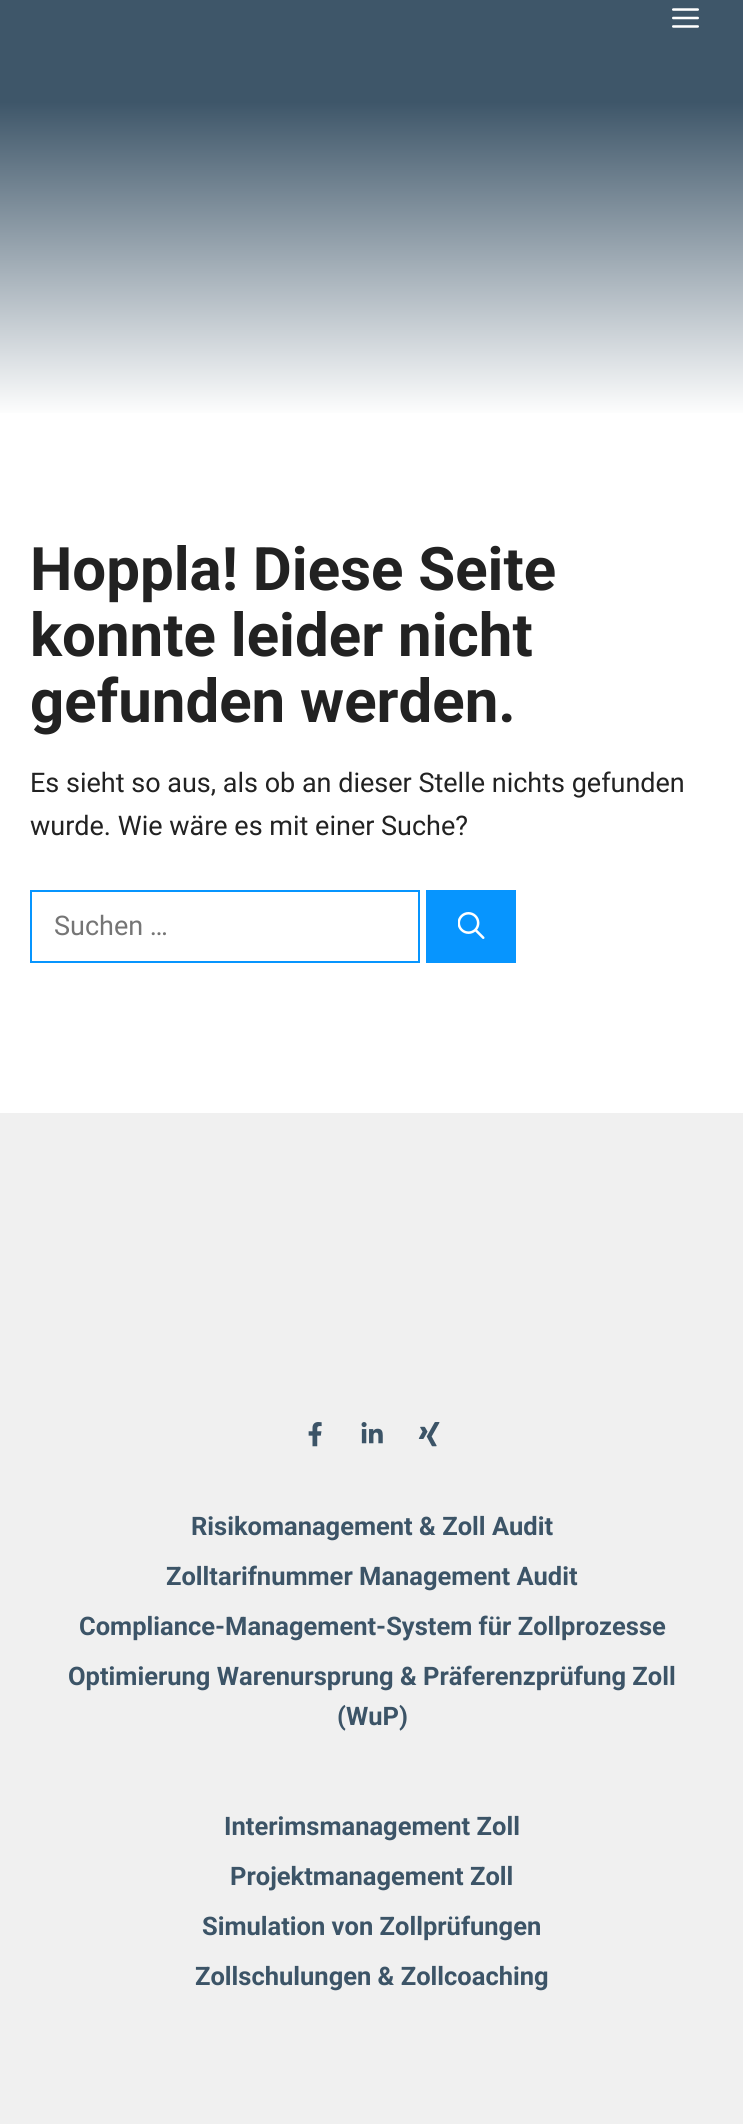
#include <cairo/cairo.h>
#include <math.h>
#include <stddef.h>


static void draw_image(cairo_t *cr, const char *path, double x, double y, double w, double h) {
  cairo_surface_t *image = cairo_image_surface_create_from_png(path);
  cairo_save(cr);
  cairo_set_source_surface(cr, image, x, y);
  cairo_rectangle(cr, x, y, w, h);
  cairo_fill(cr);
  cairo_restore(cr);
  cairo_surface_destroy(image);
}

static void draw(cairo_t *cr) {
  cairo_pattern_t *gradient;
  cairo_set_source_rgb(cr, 1, 1, 1);
  cairo_paint(cr);
  gradient = cairo_pattern_create_linear(372, -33, 372, 417);
  cairo_pattern_add_color_stop_rgba(gradient, 0.3, 62 / 255.0, 86 / 255.0, 105 / 255.0, 1);
  cairo_pattern_add_color_stop_rgba(gradient, 1, 1, 1, 1, 1);
  cairo_set_source(cr, gradient);
  cairo_pattern_destroy(gradient);
  cairo_rectangle(cr, 0, 0, 743, 413);
  cairo_fill(cr);
  draw_image(cr, "images/1.png", 672, 8, 27, 20);
  cairo_rectangle(cr, 31, 891, 388, 71);
  cairo_set_source_rgb(cr, 7 / 255.0, 149 / 255.0, 254 / 255.0);
  cairo_stroke(cr);
  cairo_rectangle(cr, 426, 890, 90, 73);
  cairo_fill(cr);
  draw_image(cr, "images/2.png", 458, 912, 27, 27);
  cairo_set_source_rgb(cr, 240 / 255.0, 240 / 255.0, 240 / 255.0);
  cairo_rectangle(cr, 0, 1113, 743, 1011);
  cairo_fill(cr);
  draw_image(cr, "images/3.png", 308, 1422, 14, 25);
  draw_image(cr, "images/4.png", 361, 1422, 22, 22);
  draw_image(cr, "images/5.png", 418, 1422, 22, 25);
  cairo_select_font_face(cr, "Roboto", CAIRO_FONT_SLANT_NORMAL, CAIRO_FONT_WEIGHT_BOLD);
  cairo_set_font_size(cr, 60);
  cairo_set_source_rgb(cr, 34 / 255.0, 34 / 255.0, 34 / 255.0);
  cairo_move_to(cr, 30, 590);
  cairo_show_text(cr, "Hoppla! Diese Seite");
  cairo_move_to(cr, 30, 656);
  cairo_show_text(cr, "konnte leider nicht");
  cairo_move_to(cr, 30, 722);
  cairo_show_text(cr, "gefunden werden.");
  cairo_select_font_face(cr, "Roboto", CAIRO_FONT_SLANT_NORMAL, CAIRO_FONT_WEIGHT_NORMAL);
  cairo_set_font_size(cr, 27);
  cairo_move_to(cr, 30, 792);
  cairo_show_text(cr, "Es sieht so aus, als ob an dieser Stelle nichts gefunden");
  cairo_move_to(cr, 30, 835);
  cairo_show_text(cr, "wurde. Wie wäre es mit einer Suche?");
  cairo_set_source_rgb(cr, 117 / 255.0, 117 / 255.0, 117 / 255.0);
  cairo_move_to(cr, 54, 935);
  cairo_show_text(cr, "Suchen …");
  cairo_select_font_face(cr, "Roboto", CAIRO_FONT_SLANT_NORMAL, CAIRO_FONT_WEIGHT_BOLD);
  cairo_set_font_size(cr, 25.5);
  cairo_set_source_rgb(cr, 60 / 255.0, 84 / 255.0, 103 / 255.0);
  cairo_move_to(cr, 191, 1535);
  cairo_show_text(cr, "Risikomanagement & Zoll Audit");
  cairo_move_to(cr, 166, 1585);
  cairo_show_text(cr, "Zolltarifnummer Management Audit");
  cairo_move_to(cr, 79, 1635);
  cairo_show_text(cr, "Compliance-Management-System für Zollprozesse");
  cairo_move_to(cr, 68, 1685);
  cairo_show_text(cr, "Optimierung Warenursprung & Präferenzprüfung Zoll");
  cairo_move_to(cr, 337, 1725);
  cairo_show_text(cr, "(WuP)");
  cairo_move_to(cr, 224, 1835);
  cairo_show_text(cr, "Interimsmanagement Zoll");
  cairo_move_to(cr, 230, 1885);
  cairo_show_text(cr, "Projektmanagement Zoll");
  cairo_move_to(cr, 202, 1935);
  cairo_show_text(cr, "Simulation von Zollprüfungen");
  cairo_move_to(cr, 195, 1985);
  cairo_show_text(cr, "Zollschulungen & Zollcoaching");
}

int main(void) {
  cairo_surface_t *surface = cairo_image_surface_create(CAIRO_FORMAT_RGB24, 743, 2124);
  cairo_t *cr = cairo_create(surface);
  cairo_font_options_t *options = cairo_font_options_create();
  cairo_font_options_set_hint_metrics(options, CAIRO_HINT_METRICS_OFF);
  cairo_font_options_set_hint_style(options, CAIRO_HINT_STYLE_NONE);
  cairo_set_font_options(cr, options);
  cairo_set_miter_limit(cr, 4);
  draw(cr);
  cairo_surface_write_to_png(surface, "out.png");
  cairo_font_options_destroy(options);
  cairo_destroy(cr);
  cairo_surface_destroy(surface);
  return 0;
}
